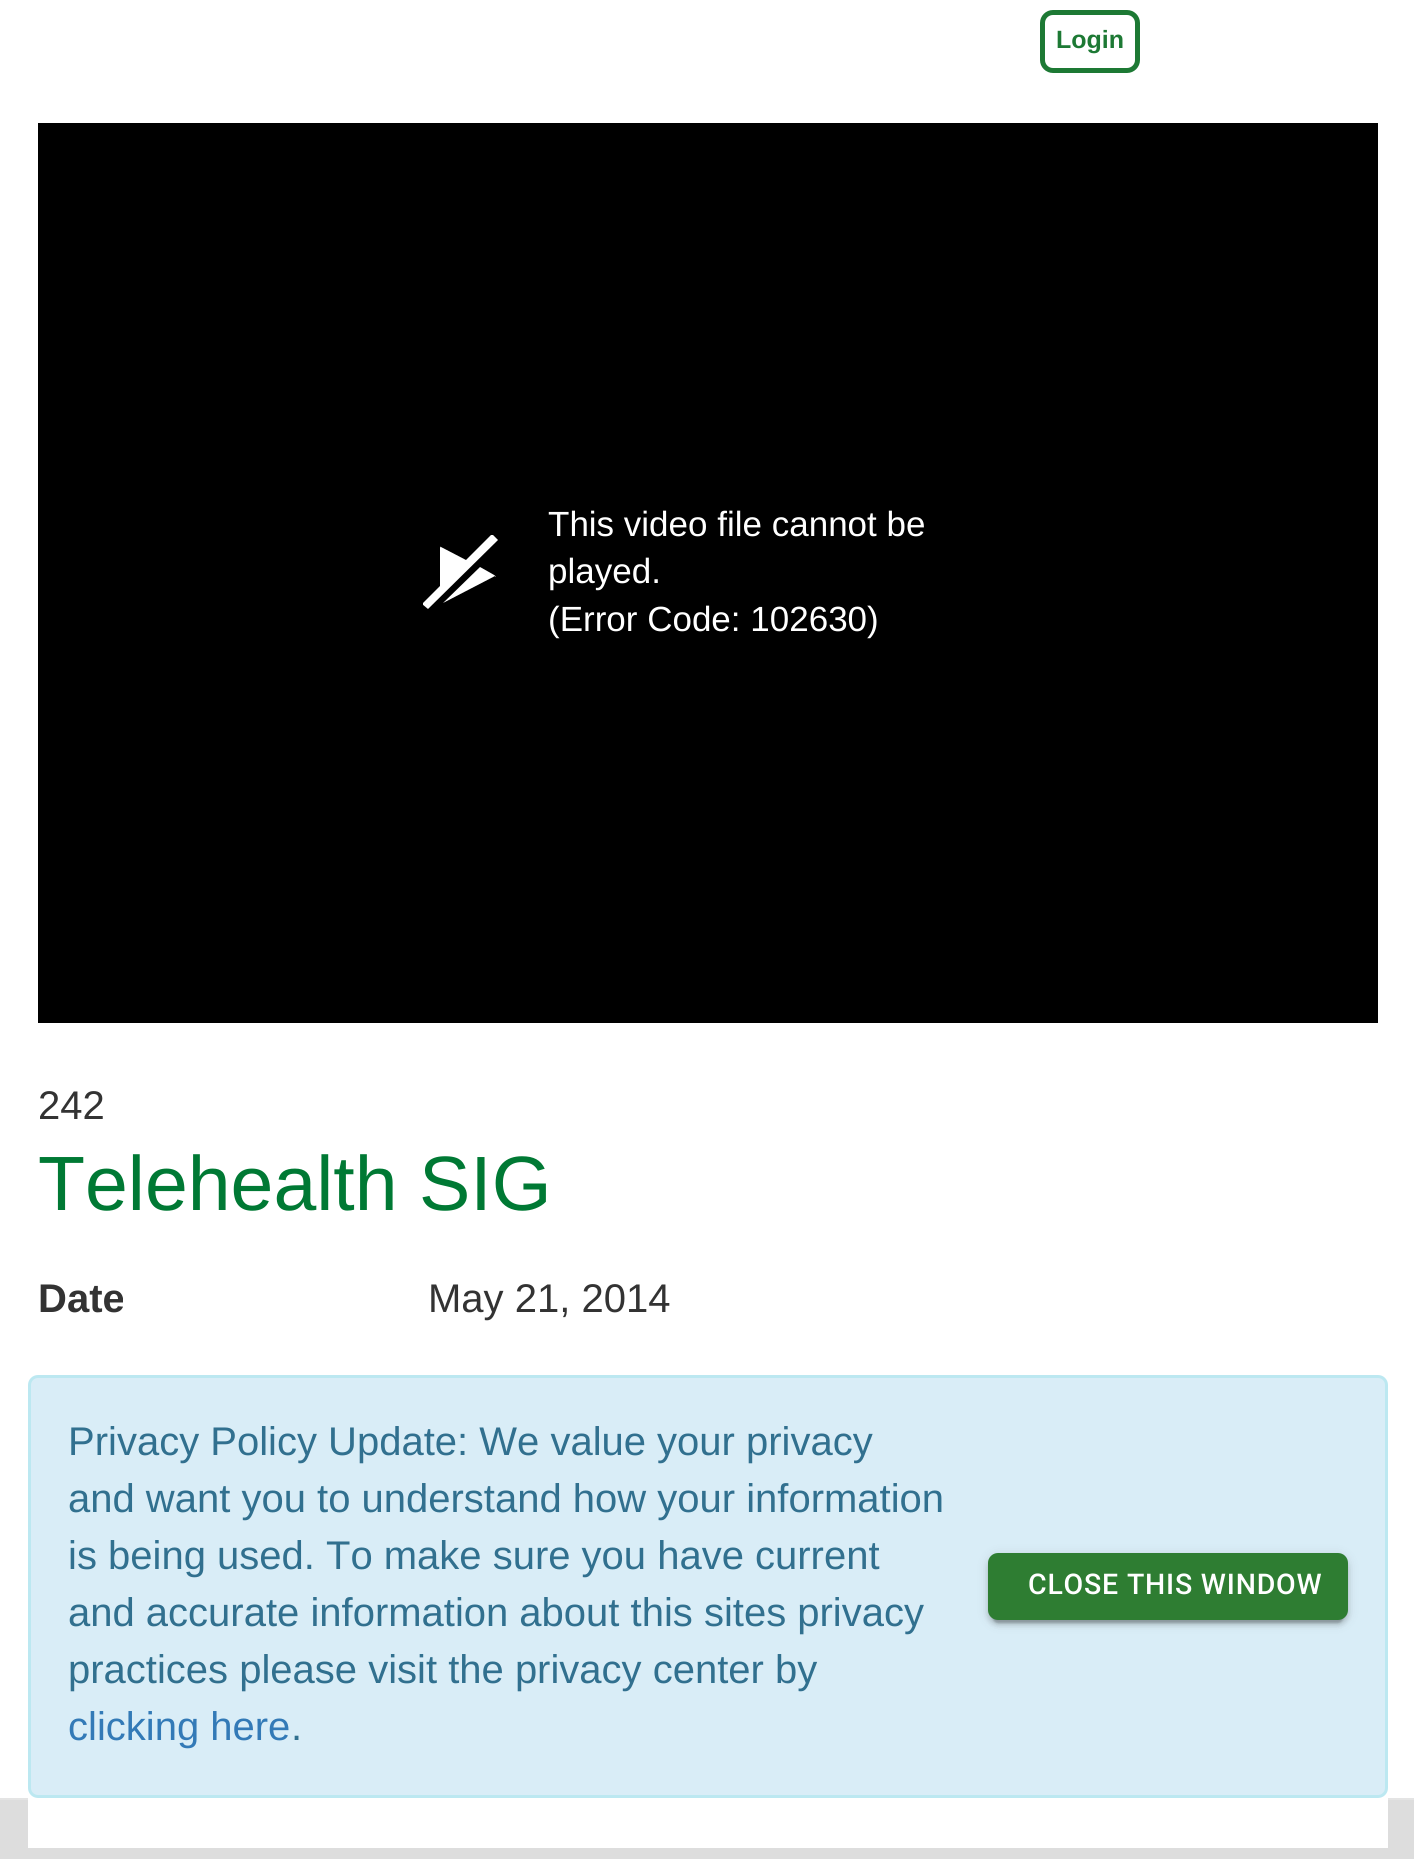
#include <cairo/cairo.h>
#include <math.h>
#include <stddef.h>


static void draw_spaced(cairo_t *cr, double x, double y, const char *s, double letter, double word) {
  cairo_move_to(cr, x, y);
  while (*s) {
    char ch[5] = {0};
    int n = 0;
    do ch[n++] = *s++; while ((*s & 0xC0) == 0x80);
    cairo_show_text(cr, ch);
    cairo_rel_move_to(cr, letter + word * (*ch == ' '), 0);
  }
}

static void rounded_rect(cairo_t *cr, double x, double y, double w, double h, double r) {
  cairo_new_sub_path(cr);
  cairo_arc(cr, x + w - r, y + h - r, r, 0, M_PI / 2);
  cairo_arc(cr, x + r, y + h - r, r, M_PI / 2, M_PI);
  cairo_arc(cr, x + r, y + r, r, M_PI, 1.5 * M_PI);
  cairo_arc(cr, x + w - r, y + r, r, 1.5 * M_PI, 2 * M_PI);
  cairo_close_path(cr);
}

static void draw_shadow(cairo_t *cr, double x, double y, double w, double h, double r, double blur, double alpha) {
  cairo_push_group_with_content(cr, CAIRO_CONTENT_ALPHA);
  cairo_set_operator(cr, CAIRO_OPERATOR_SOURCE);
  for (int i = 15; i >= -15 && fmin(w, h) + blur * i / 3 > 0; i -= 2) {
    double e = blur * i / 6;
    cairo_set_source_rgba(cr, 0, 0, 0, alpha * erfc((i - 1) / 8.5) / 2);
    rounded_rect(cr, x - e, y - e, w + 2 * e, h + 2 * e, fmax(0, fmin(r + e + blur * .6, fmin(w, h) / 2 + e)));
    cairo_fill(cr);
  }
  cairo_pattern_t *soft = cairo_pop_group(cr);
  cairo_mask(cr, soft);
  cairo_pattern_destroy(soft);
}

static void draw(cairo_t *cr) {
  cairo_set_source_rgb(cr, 1, 1, 1);
  cairo_paint(cr);
  rounded_rect(cr, 1042.5, 12.5, 95, 58, 10.5);
  cairo_set_source_rgb(cr, 29 / 255.0, 121 / 255.0, 52 / 255.0);
  cairo_set_line_width(cr, 5);
  cairo_stroke(cr);
  cairo_set_source_rgb(cr, 0, 0, 0);
  cairo_rectangle(cr, 38, 123, 1340, 900);
  cairo_fill(cr);
  cairo_save(cr);
  cairo_rectangle(cr, 423, 535, 75, 75);
  cairo_clip(cr);
  cairo_set_source_rgb(cr, 1, 1, 1);
  cairo_new_path(cr);
  cairo_move_to(cr, 495, 576);
  cairo_line_to(cr, 443, 603);
  cairo_line_to(cr, 480, 567);
  cairo_curve_to(cr, 494, 575, 497, 576, 495, 577);
  cairo_close_path(cr);
  cairo_move_to(cr, 492, 534);
  cairo_line_to(cr, 466, 560);
  cairo_line_to(cr, 441, 547);
  cairo_curve_to(cr, 441, 546, 440, 547, 440, 548);
  cairo_line_to(cr, 440, 586);
  cairo_line_to(cr, 422, 604);
  cairo_line_to(cr, 428, 609);
  cairo_line_to(cr, 498, 540);
  cairo_close_path(cr);
  cairo_fill(cr);
  cairo_restore(cr);
  cairo_set_source_rgb(cr, 228 / 255.0, 228 / 255.0, 228 / 255.0);
  cairo_rectangle(cr, 0, 1798, 1414, 2);
  cairo_fill(cr);
  cairo_set_source_rgb(cr, 221 / 255.0, 221 / 255.0, 221 / 255.0);
  cairo_rectangle(cr, 0, 1800, 1414, 59);
  cairo_fill(cr);
  cairo_set_source_rgb(cr, 1, 1, 1);
  cairo_rectangle(cr, 28, 1798, 1360, 50);
  cairo_fill(cr);
  cairo_set_source_rgb(cr, 217 / 255.0, 237 / 255.0, 247 / 255.0);
  rounded_rect(cr, 29.5, 1376.5, 1357, 420, 8.5);
  cairo_fill_preserve(cr);
  cairo_set_source_rgb(cr, 188 / 255.0, 232 / 255.0, 241 / 255.0);
  cairo_set_line_width(cr, 3);
  cairo_stroke(cr);
  cairo_set_source_rgb(cr, 0, 0, 0);
  draw_shadow(cr, 988, 1555, 360, 68, 10, 6, 0.12);
  draw_shadow(cr, 988, 1558, 360, 67, 10, 2.5, 0.14);
  draw_shadow(cr, 993, 1565, 350, 58, 5, 1, 0.2);
  cairo_set_source_rgb(cr, 46 / 255.0, 125 / 255.0, 50 / 255.0);
  rounded_rect(cr, 988, 1553, 360, 67, 10);
  cairo_fill(cr);
  cairo_select_font_face(cr, "Liberation Sans", CAIRO_FONT_SLANT_NORMAL, CAIRO_FONT_WEIGHT_BOLD);
  cairo_set_font_size(cr, 25);
  cairo_set_source_rgb(cr, 29 / 255.0, 121 / 255.0, 52 / 255.0);
  cairo_move_to(cr, 1056, 48);
  cairo_show_text(cr, "Login");
  cairo_select_font_face(cr, "Liberation Sans", CAIRO_FONT_SLANT_NORMAL, CAIRO_FONT_WEIGHT_NORMAL);
  cairo_set_font_size(cr, 35);
  cairo_set_source_rgb(cr, 1, 1, 1);
  cairo_move_to(cr, 548, 536);
  cairo_show_text(cr, "This video file cannot be");
  cairo_move_to(cr, 548, 583);
  cairo_show_text(cr, "played.");
  cairo_move_to(cr, 548, 631);
  cairo_show_text(cr, "(Error Code: 102630)");
  cairo_set_font_size(cr, 40);
  cairo_set_source_rgb(cr, 51 / 255.0, 51 / 255.0, 51 / 255.0);
  cairo_move_to(cr, 38, 1119);
  cairo_show_text(cr, "242");
  cairo_set_font_size(cr, 77);
  cairo_set_source_rgb(cr, 0, 121 / 255.0, 52 / 255.0);
  cairo_move_to(cr, 38, 1210);
  cairo_show_text(cr, "Telehealth SIG");
  cairo_select_font_face(cr, "Liberation Sans", CAIRO_FONT_SLANT_NORMAL, CAIRO_FONT_WEIGHT_BOLD);
  cairo_set_font_size(cr, 40);
  cairo_set_source_rgb(cr, 51 / 255.0, 51 / 255.0, 51 / 255.0);
  cairo_move_to(cr, 38, 1312);
  cairo_show_text(cr, "Date");
  cairo_select_font_face(cr, "Liberation Sans", CAIRO_FONT_SLANT_NORMAL, CAIRO_FONT_WEIGHT_NORMAL);
  cairo_move_to(cr, 428, 1312);
  cairo_show_text(cr, "May 21, 2014");
  cairo_set_source_rgb(cr, 49 / 255.0, 112 / 255.0, 143 / 255.0);
  cairo_move_to(cr, 68, 1455);
  cairo_show_text(cr, "Privacy Policy Update: We value your privacy");
  cairo_move_to(cr, 68, 1512);
  cairo_show_text(cr, "and want you to understand how your information");
  cairo_move_to(cr, 68, 1569);
  cairo_show_text(cr, "is being used. To make sure you have current");
  cairo_move_to(cr, 68, 1626);
  cairo_show_text(cr, "and accurate information about this sites privacy");
  cairo_move_to(cr, 68, 1683);
  cairo_show_text(cr, "practices please visit the privacy center by");
  cairo_set_source_rgb(cr, 51 / 255.0, 122 / 255.0, 183 / 255.0);
  cairo_move_to(cr, 68, 1740);
  cairo_show_text(cr, "clicking here");
  cairo_set_source_rgb(cr, 49 / 255.0, 112 / 255.0, 143 / 255.0);
  cairo_move_to(cr, 291, 1740);
  cairo_show_text(cr, ".");
  cairo_select_font_face(cr, "Roboto Medium", CAIRO_FONT_SLANT_NORMAL, CAIRO_FONT_WEIGHT_NORMAL);
  cairo_set_font_size(cr, 28.5);
  cairo_set_source_rgb(cr, 1, 1, 1);
  draw_spaced(cr, 1028, 1594, "CLOSE THIS WINDOW", 0.8, 0);
}

int main(void) {
  cairo_surface_t *surface = cairo_image_surface_create(CAIRO_FORMAT_RGB24, 1414, 1859);
  cairo_t *cr = cairo_create(surface);
  cairo_font_options_t *options = cairo_font_options_create();
  cairo_font_options_set_hint_metrics(options, CAIRO_HINT_METRICS_OFF);
  cairo_font_options_set_hint_style(options, CAIRO_HINT_STYLE_NONE);
  cairo_set_font_options(cr, options);
  cairo_set_miter_limit(cr, 4);
  draw(cr);
  cairo_surface_write_to_png(surface, "out.png");
  cairo_font_options_destroy(options);
  cairo_destroy(cr);
  cairo_surface_destroy(surface);
  return 0;
}
